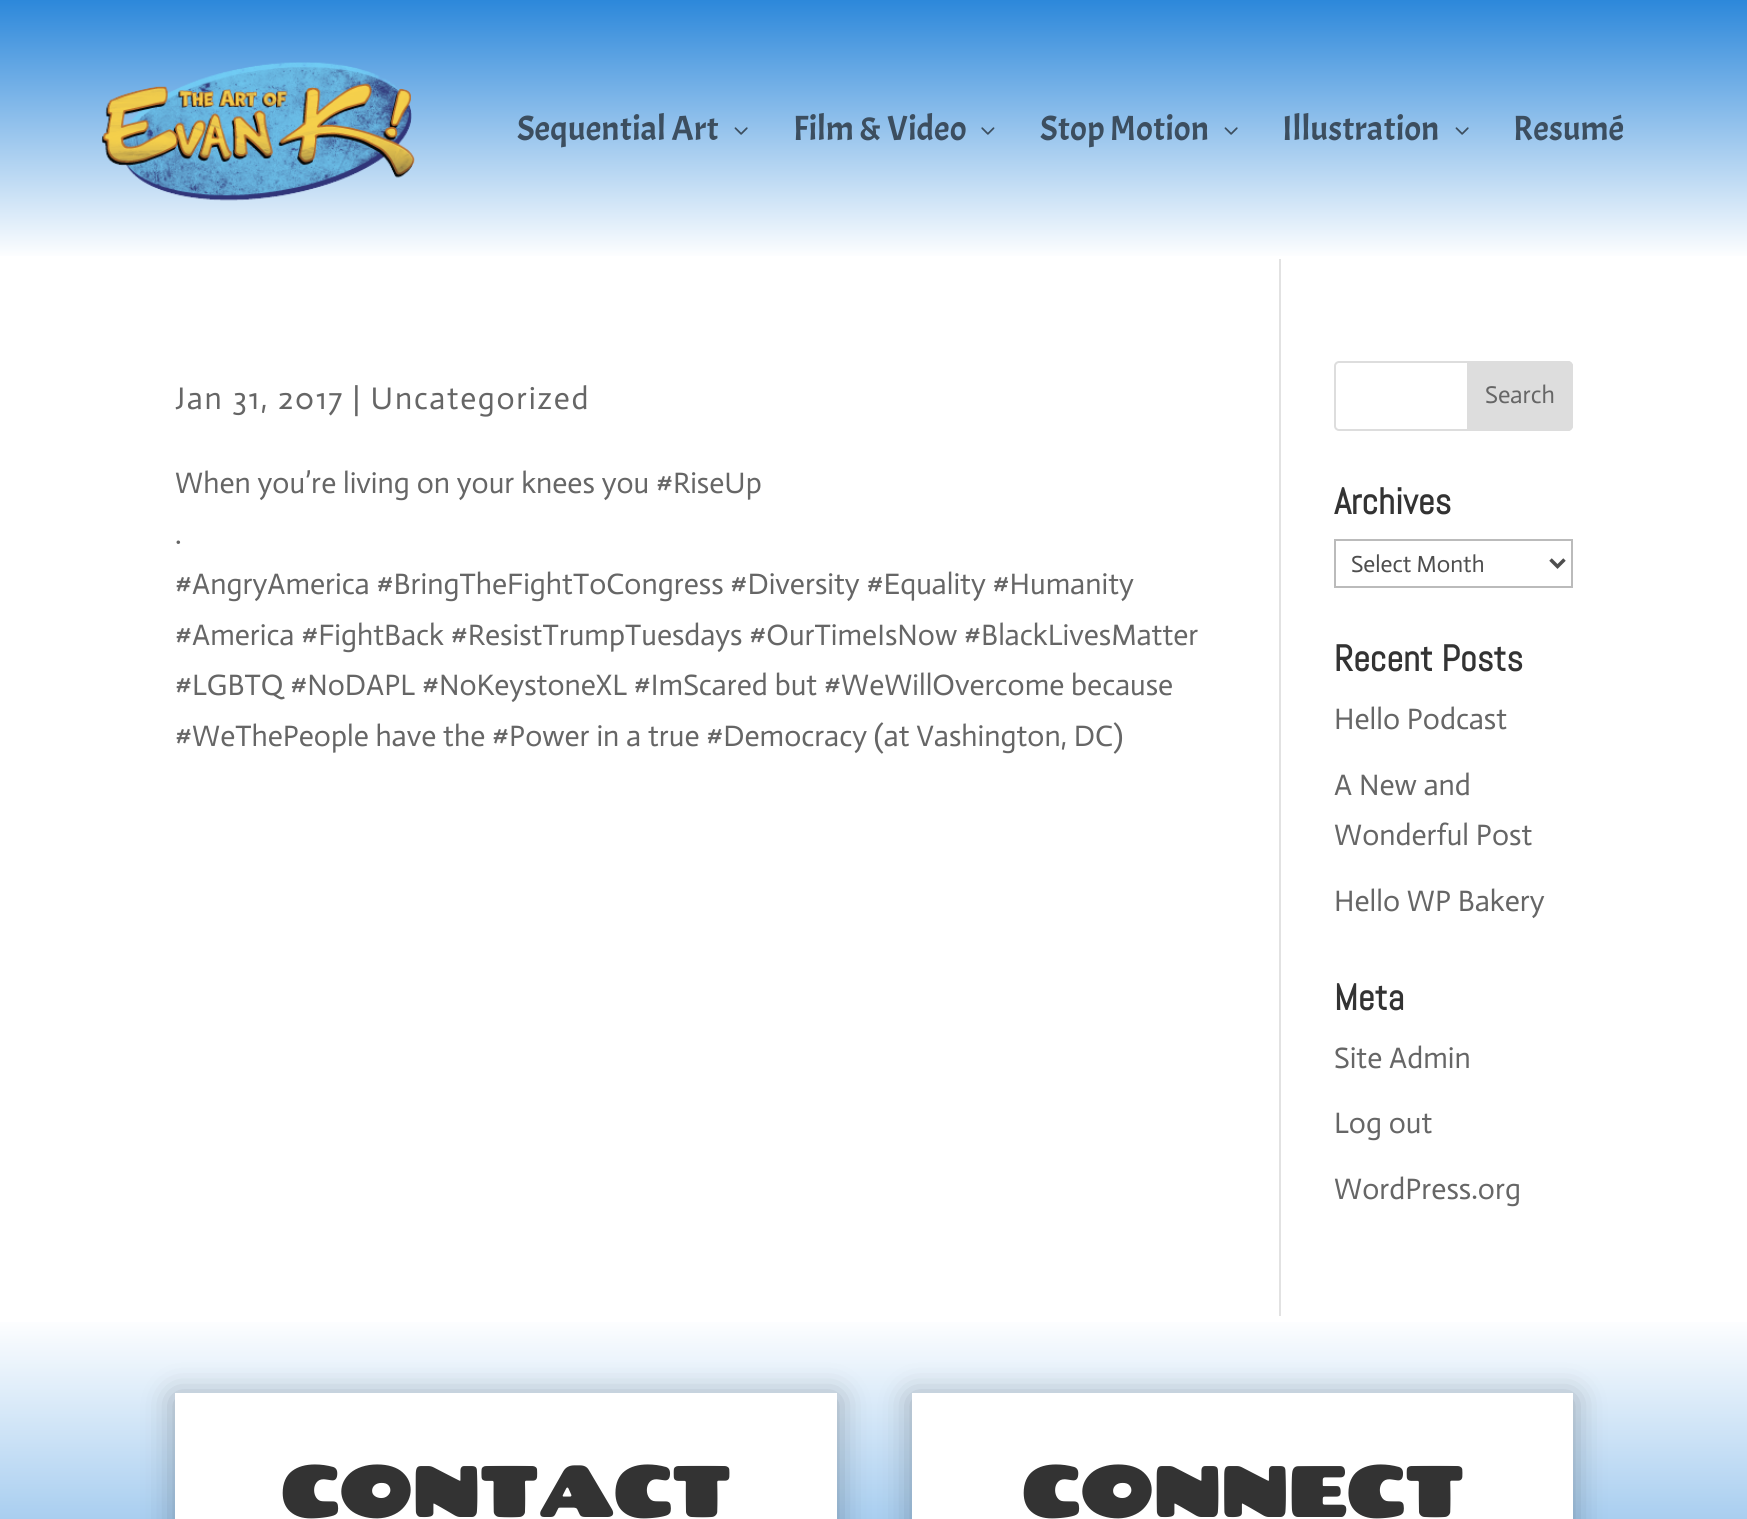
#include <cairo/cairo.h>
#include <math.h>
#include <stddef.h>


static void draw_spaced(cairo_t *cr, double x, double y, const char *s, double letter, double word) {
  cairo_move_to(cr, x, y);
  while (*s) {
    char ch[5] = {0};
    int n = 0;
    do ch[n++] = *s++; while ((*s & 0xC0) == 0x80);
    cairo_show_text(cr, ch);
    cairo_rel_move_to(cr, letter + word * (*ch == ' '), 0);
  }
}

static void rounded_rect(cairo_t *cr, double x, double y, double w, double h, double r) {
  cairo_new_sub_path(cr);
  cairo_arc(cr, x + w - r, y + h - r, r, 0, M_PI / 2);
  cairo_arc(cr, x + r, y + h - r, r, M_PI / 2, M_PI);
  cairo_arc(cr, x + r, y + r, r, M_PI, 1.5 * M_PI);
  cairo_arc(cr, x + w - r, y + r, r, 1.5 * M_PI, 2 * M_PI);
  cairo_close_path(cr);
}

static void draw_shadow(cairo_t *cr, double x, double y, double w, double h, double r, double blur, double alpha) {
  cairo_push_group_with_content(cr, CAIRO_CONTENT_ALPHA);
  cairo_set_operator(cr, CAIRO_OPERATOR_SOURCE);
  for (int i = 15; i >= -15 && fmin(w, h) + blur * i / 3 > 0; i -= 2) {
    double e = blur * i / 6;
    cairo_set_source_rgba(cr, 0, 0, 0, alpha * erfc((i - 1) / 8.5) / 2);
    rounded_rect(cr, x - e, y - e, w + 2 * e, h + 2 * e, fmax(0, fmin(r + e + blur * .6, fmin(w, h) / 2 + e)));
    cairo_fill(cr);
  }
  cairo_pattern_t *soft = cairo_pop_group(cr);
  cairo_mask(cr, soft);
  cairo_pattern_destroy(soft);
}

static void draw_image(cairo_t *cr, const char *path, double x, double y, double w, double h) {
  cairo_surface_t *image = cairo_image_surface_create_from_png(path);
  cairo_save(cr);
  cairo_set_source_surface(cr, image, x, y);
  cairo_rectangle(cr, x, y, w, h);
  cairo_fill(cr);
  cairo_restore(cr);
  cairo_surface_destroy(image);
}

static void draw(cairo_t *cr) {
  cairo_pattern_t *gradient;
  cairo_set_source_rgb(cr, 1, 1, 1);
  cairo_paint(cr);
  gradient = cairo_pattern_create_linear(874, -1.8, 874, 259);
  cairo_pattern_add_color_stop_rgba(gradient, 0, 43 / 255.0, 135 / 255.0, 218 / 255.0, 1);
  cairo_pattern_add_color_stop_rgba(gradient, 1, 1, 1, 1, 1);
  cairo_set_source(cr, gradient);
  cairo_pattern_destroy(gradient);
  cairo_rectangle(cr, 0, 0, 1747, 256);
  cairo_fill(cr);
  draw_image(cr, "images/1.png", 101, 62, 314, 139);
  draw_image(cr, "images/2.png", 734, 127, 14, 8);
  draw_image(cr, "images/3.png", 981, 127, 14, 8);
  draw_image(cr, "images/2.png", 1224, 127, 14, 8);
  draw_image(cr, "images/2.png", 1455, 127, 14, 8);
  cairo_set_source_rgb(cr, 226 / 255.0, 226 / 255.0, 226 / 255.0);
  cairo_rectangle(cr, 1279, 259, 2, 1057);
  cairo_fill(cr);
  rounded_rect(cr, 1335, 362, 237, 68, 4);
  cairo_set_source_rgb(cr, 221 / 255.0, 221 / 255.0, 221 / 255.0);
  cairo_stroke(cr);
  cairo_new_path(cr);
  cairo_move_to(cr, 1468, 362);
  cairo_line_to(cr, 1568, 362);
  cairo_curve_to(cr, 1570, 362, 1572, 364, 1572, 366);
  cairo_line_to(cr, 1572, 426);
  cairo_curve_to(cr, 1572, 428, 1570, 430, 1568, 430);
  cairo_line_to(cr, 1468, 430);
  cairo_close_path(cr);
  cairo_fill_preserve(cr);
  cairo_stroke(cr);
  cairo_rectangle(cr, 1335, 540, 237, 47);
  cairo_set_source_rgb(cr, 187 / 255.0, 187 / 255.0, 187 / 255.0);
  cairo_stroke(cr);
  cairo_new_path(cr);
  cairo_move_to(cr, 1550.5, 559.5);
  cairo_line_to(cr, 1557.5, 566.5);
  cairo_line_to(cr, 1564.5, 559.5);
  cairo_set_source_rgb(cr, 78 / 255.0, 78 / 255.0, 78 / 255.0);
  cairo_set_line_width(cr, 3.5);
  cairo_stroke(cr);
  gradient = cairo_pattern_create_linear(874, 1316, 874, 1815);
  cairo_pattern_add_color_stop_rgba(gradient, 0, 1, 1, 1, 1);
  cairo_pattern_add_color_stop_rgba(gradient, 1, 43 / 255.0, 135 / 255.0, 218 / 255.0, 1);
  cairo_set_source(cr, gradient);
  cairo_pattern_destroy(gradient);
  cairo_rectangle(cr, 0, 1322, 1747, 197);
  cairo_fill(cr);
  cairo_set_source_rgb(cr, 0, 0, 0);
  draw_shadow(cr, 175, 1397, 662, 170, 0, 16, 0.3);
  cairo_set_source_rgb(cr, 1, 1, 1);
  cairo_rectangle(cr, 175, 1393, 662, 126);
  cairo_fill(cr);
  cairo_set_source_rgb(cr, 0, 0, 0);
  draw_shadow(cr, 912, 1397, 661, 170, 0, 16, 0.3);
  cairo_set_source_rgb(cr, 1, 1, 1);
  cairo_rectangle(cr, 912, 1393, 661, 126);
  cairo_fill(cr);
  cairo_select_font_face(cr, "Acme", CAIRO_FONT_SLANT_NORMAL, CAIRO_FONT_WEIGHT_NORMAL);
  cairo_set_font_size(cr, 35);
  cairo_set_source_rgb(cr, 60 / 255.0, 78 / 255.0, 95 / 255.0);
  cairo_move_to(cr, 517, 140);
  cairo_show_text(cr, "Sequential Art");
  cairo_move_to(cr, 793, 140);
  cairo_show_text(cr, "Film & Video");
  cairo_move_to(cr, 1040, 140);
  cairo_show_text(cr, "Stop Motion");
  cairo_move_to(cr, 1282, 140);
  cairo_show_text(cr, "Illustration");
  cairo_move_to(cr, 1513, 140);
  cairo_show_text(cr, "Resumé");
  cairo_select_font_face(cr, "Actor", CAIRO_FONT_SLANT_NORMAL, CAIRO_FONT_WEIGHT_NORMAL);
  cairo_set_font_size(cr, 31.5);
  cairo_set_source_rgb(cr, 102 / 255.0, 102 / 255.0, 102 / 255.0);
  draw_spaced(cr, 175, 409, "Jan 31, 2017 | Uncategorized", 1.75, 0);
  cairo_set_font_size(cr, 29.75);
  cairo_move_to(cr, 175, 493);
  cairo_show_text(cr, "When you’re living on your knees you #RiseUp");
  cairo_move_to(cr, 175, 544);
  cairo_show_text(cr, ".");
  cairo_move_to(cr, 175, 594);
  cairo_show_text(cr, "#AngryAmerica #BringTheFightToCongress #Diversity #Equality #Humanity");
  cairo_move_to(cr, 175, 645);
  cairo_show_text(cr, "#America #FightBack #ResistTrumpTuesdays #OurTimeIsNow #BlackLivesMatter");
  cairo_move_to(cr, 175, 695);
  cairo_show_text(cr, "#LGBTQ #NoDAPL #NoKeystoneXL #ImScared but #WeWillOvercome because");
  cairo_move_to(cr, 175, 746);
  cairo_show_text(cr, "#WeThePeople have the #Power in a true #Democracy (at Vashington, DC)");
  cairo_set_font_size(cr, 24.5);
  cairo_move_to(cr, 1485, 403);
  cairo_show_text(cr, "Search");
  cairo_select_font_face(cr, "Abel", CAIRO_FONT_SLANT_NORMAL, CAIRO_FONT_WEIGHT_BOLD);
  cairo_set_font_size(cr, 36.75);
  cairo_set_source_rgb(cr, 51 / 255.0, 51 / 255.0, 51 / 255.0);
  cairo_move_to(cr, 1334, 514);
  cairo_show_text(cr, "Archives");
  cairo_select_font_face(cr, "Actor", CAIRO_FONT_SLANT_NORMAL, CAIRO_FONT_WEIGHT_NORMAL);
  cairo_set_font_size(cr, 23.5);
  cairo_set_source_rgb(cr, 78 / 255.0, 78 / 255.0, 78 / 255.0);
  cairo_move_to(cr, 1351, 572);
  cairo_show_text(cr, "Select Month");
  cairo_select_font_face(cr, "Abel", CAIRO_FONT_SLANT_NORMAL, CAIRO_FONT_WEIGHT_BOLD);
  cairo_set_font_size(cr, 36.75);
  cairo_set_source_rgb(cr, 51 / 255.0, 51 / 255.0, 51 / 255.0);
  cairo_move_to(cr, 1334, 671);
  cairo_show_text(cr, "Recent Posts");
  cairo_select_font_face(cr, "Actor", CAIRO_FONT_SLANT_NORMAL, CAIRO_FONT_WEIGHT_NORMAL);
  cairo_set_font_size(cr, 29.75);
  cairo_set_source_rgb(cr, 102 / 255.0, 102 / 255.0, 102 / 255.0);
  cairo_move_to(cr, 1334, 729);
  cairo_show_text(cr, "Hello Podcast");
  cairo_move_to(cr, 1334, 795);
  cairo_show_text(cr, "A New and");
  cairo_move_to(cr, 1334, 845);
  cairo_show_text(cr, "Wonderful Post");
  cairo_move_to(cr, 1334, 911);
  cairo_show_text(cr, "Hello WP Bakery");
  cairo_select_font_face(cr, "Abel", CAIRO_FONT_SLANT_NORMAL, CAIRO_FONT_WEIGHT_BOLD);
  cairo_set_font_size(cr, 36.75);
  cairo_set_source_rgb(cr, 51 / 255.0, 51 / 255.0, 51 / 255.0);
  cairo_move_to(cr, 1334, 1010);
  cairo_show_text(cr, "Meta");
  cairo_select_font_face(cr, "Actor", CAIRO_FONT_SLANT_NORMAL, CAIRO_FONT_WEIGHT_NORMAL);
  cairo_set_font_size(cr, 29.75);
  cairo_set_source_rgb(cr, 102 / 255.0, 102 / 255.0, 102 / 255.0);
  cairo_move_to(cr, 1334, 1068);
  cairo_show_text(cr, "Site Admin");
  cairo_move_to(cr, 1334, 1133);
  cairo_show_text(cr, "Log out");
  cairo_move_to(cr, 1334, 1199);
  cairo_show_text(cr, "WordPress.org");
  cairo_select_font_face(cr, "Chango", CAIRO_FONT_SLANT_NORMAL, CAIRO_FONT_WEIGHT_BOLD);
  cairo_set_font_size(cr, 70);
  cairo_set_source_rgb(cr, 51 / 255.0, 51 / 255.0, 51 / 255.0);
  cairo_move_to(cr, 281, 1517);
  cairo_show_text(cr, "CONTACT");
  cairo_move_to(cr, 1022, 1517);
  cairo_show_text(cr, "CONNECT");
}

int main(void) {
  cairo_surface_t *surface = cairo_image_surface_create(CAIRO_FORMAT_RGB24, 1747, 1519);
  cairo_t *cr = cairo_create(surface);
  cairo_font_options_t *options = cairo_font_options_create();
  cairo_font_options_set_hint_metrics(options, CAIRO_HINT_METRICS_OFF);
  cairo_font_options_set_hint_style(options, CAIRO_HINT_STYLE_NONE);
  cairo_set_font_options(cr, options);
  cairo_set_miter_limit(cr, 4);
  draw(cr);
  cairo_surface_write_to_png(surface, "out.png");
  cairo_font_options_destroy(options);
  cairo_destroy(cr);
  cairo_surface_destroy(surface);
  return 0;
}
